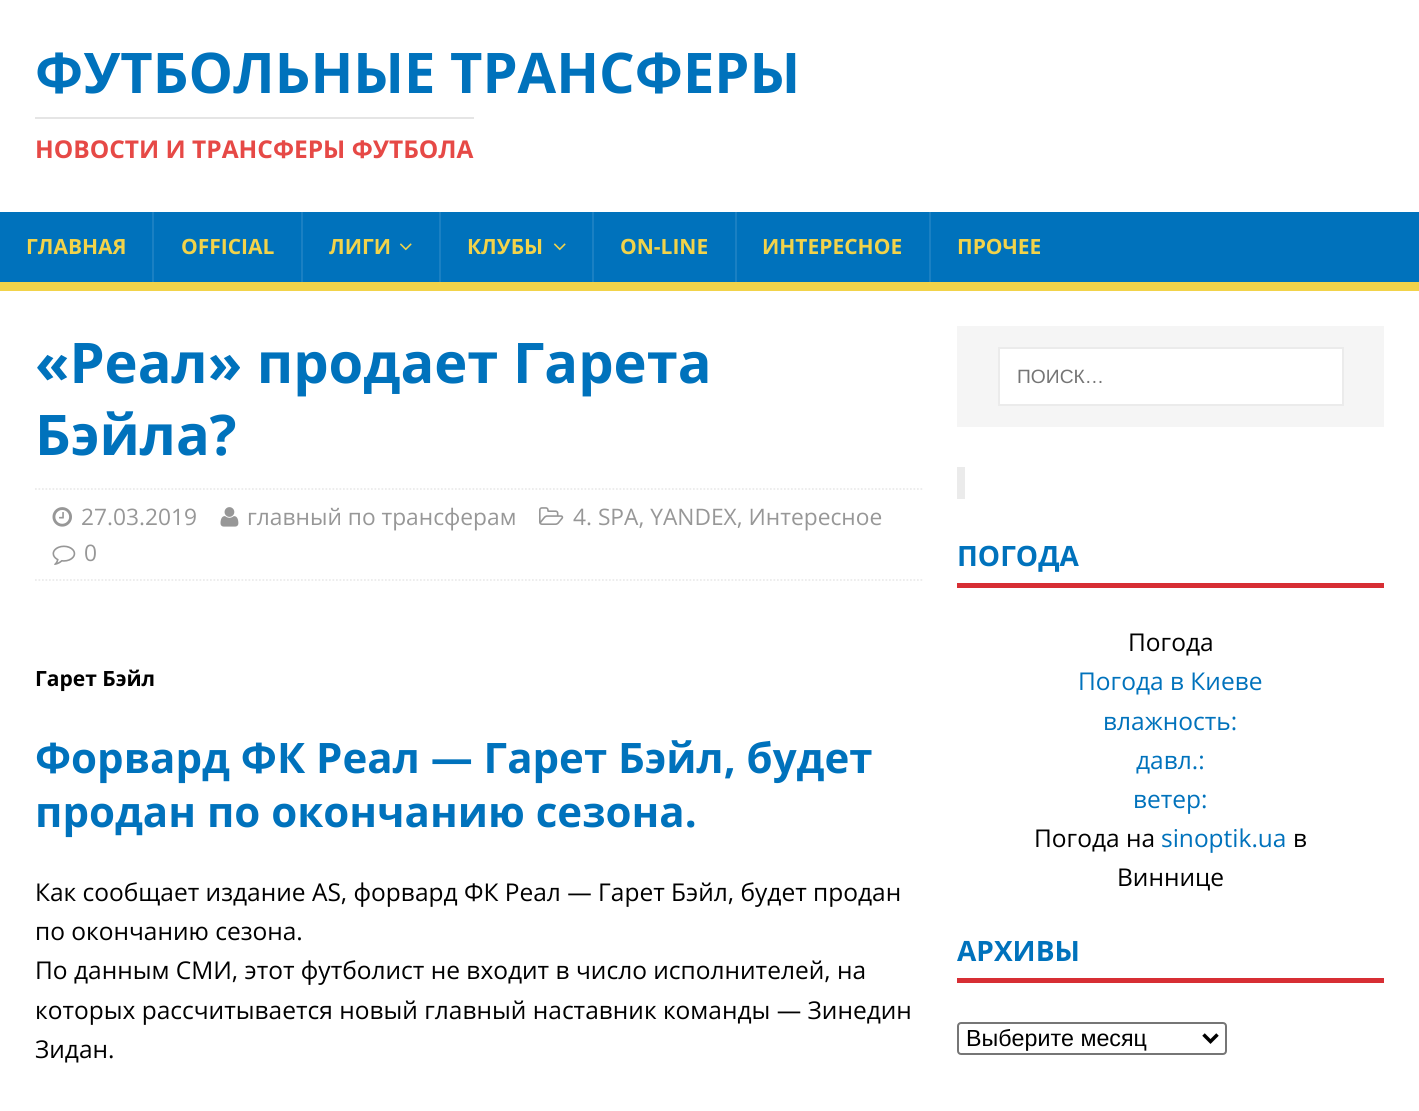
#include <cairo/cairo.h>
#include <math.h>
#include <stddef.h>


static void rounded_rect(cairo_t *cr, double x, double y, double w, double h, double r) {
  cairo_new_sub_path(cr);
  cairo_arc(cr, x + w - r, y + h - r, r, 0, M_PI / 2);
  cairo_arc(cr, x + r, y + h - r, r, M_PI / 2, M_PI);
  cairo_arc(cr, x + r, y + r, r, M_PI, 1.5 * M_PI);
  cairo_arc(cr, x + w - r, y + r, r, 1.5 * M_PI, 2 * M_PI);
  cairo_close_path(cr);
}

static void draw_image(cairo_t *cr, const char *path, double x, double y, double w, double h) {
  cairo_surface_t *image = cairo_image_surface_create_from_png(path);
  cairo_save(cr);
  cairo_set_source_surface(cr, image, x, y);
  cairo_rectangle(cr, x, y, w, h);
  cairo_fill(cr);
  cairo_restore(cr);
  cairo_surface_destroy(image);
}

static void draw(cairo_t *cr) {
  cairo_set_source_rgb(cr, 1, 1, 1);
  cairo_paint(cr);
  cairo_set_source_rgb(cr, 229 / 255.0, 229 / 255.0, 229 / 255.0);
  cairo_rectangle(cr, 35, 117, 439, 2);
  cairo_fill(cr);
  cairo_set_source_rgb(cr, 0, 114 / 255.0, 188 / 255.0);
  cairo_rectangle(cr, 0, 212, 1419, 70);
  cairo_fill(cr);
  cairo_set_source_rgb(cr, 242 / 255.0, 211 / 255.0, 74 / 255.0);
  cairo_rectangle(cr, 0, 282, 1419, 9);
  cairo_fill(cr);
  cairo_set_source_rgb(cr, 26 / 255.0, 128 / 255.0, 195 / 255.0);
  cairo_rectangle(cr, 152, 212, 2, 70);
  cairo_fill(cr);
  cairo_rectangle(cr, 301, 212, 2, 70);
  cairo_fill(cr);
  draw_image(cr, "images/1.png", 399, 243, 13, 8);
  cairo_rectangle(cr, 439, 212, 2, 70);
  cairo_fill(cr);
  draw_image(cr, "images/1.png", 553, 243, 13, 8);
  cairo_rectangle(cr, 592, 212, 2, 70);
  cairo_fill(cr);
  cairo_rectangle(cr, 735, 212, 2, 70);
  cairo_fill(cr);
  cairo_rectangle(cr, 929, 212, 2, 70);
  cairo_fill(cr);
  cairo_new_path(cr);
  cairo_move_to(cr, 35, 489);
  cairo_line_to(cr, 924, 489);
  cairo_set_source_rgb(cr, 235 / 255.0, 235 / 255.0, 235 / 255.0);
  cairo_set_line_width(cr, 1.8);
  cairo_set_dash(cr, (double[]){1.75, 1.75}, 2, 0);
  cairo_stroke(cr);
  cairo_new_path(cr);
  cairo_move_to(cr, 35, 580);
  cairo_line_to(cr, 924, 580);
  cairo_stroke(cr);
  draw_image(cr, "images/2.png", 52, 507, 20, 20);
  draw_image(cr, "images/3.png", 220, 507, 19, 20);
  draw_image(cr, "images/4.png", 539, 507, 25, 18);
  draw_image(cr, "images/5.png", 52, 545, 24, 20);
  cairo_set_source_rgb(cr, 245 / 255.0, 245 / 255.0, 245 / 255.0);
  cairo_rectangle(cr, 957, 326, 427, 101);
  cairo_fill(cr);
  cairo_set_source_rgb(cr, 1, 1, 1);
  cairo_rectangle(cr, 999, 348, 344, 57);
  cairo_fill_preserve(cr);
  cairo_set_source_rgb(cr, 235 / 255.0, 235 / 255.0, 235 / 255.0);
  cairo_set_line_width(cr, 2);
  cairo_set_dash(cr, NULL, 0, 0);
  cairo_stroke(cr);
  cairo_rectangle(cr, 957, 467, 8, 32);
  cairo_fill(cr);
  cairo_set_source_rgb(cr, 215 / 255.0, 46 / 255.0, 52 / 255.0);
  cairo_rectangle(cr, 957, 583, 427, 5);
  cairo_fill(cr);
  cairo_rectangle(cr, 957, 978, 427, 5);
  cairo_fill(cr);
  rounded_rect(cr, 958, 1023, 268, 31, 3);
  cairo_set_source_rgb(cr, 118 / 255.0, 118 / 255.0, 118 / 255.0);
  cairo_stroke(cr);
  cairo_new_path(cr);
  cairo_move_to(cr, 1203.5, 1034.5);
  cairo_line_to(cr, 1210.5, 1041.5);
  cairo_line_to(cr, 1217.5, 1034.5);
  cairo_set_source_rgb(cr, 0, 0, 0);
  cairo_set_line_width(cr, 3.5);
  cairo_stroke(cr);
  cairo_select_font_face(cr, "Open Sans", CAIRO_FONT_SLANT_NORMAL, CAIRO_FONT_WEIGHT_BOLD);
  cairo_set_font_size(cr, 56);
  cairo_set_source_rgb(cr, 0, 114 / 255.0, 188 / 255.0);
  cairo_move_to(cr, 35, 93);
  cairo_show_text(cr, "ФУТБОЛЬНЫЕ ТРАНСФЕРЫ");
  cairo_set_font_size(cr, 24.5);
  cairo_set_source_rgb(cr, 230 / 255.0, 73 / 255.0, 70 / 255.0);
  cairo_move_to(cr, 35, 158);
  cairo_show_text(cr, "НОВОСТИ И ТРАНСФЕРЫ ФУТБОЛА");
  cairo_set_font_size(cr, 21);
  cairo_set_source_rgb(cr, 242 / 255.0, 211 / 255.0, 74 / 255.0);
  cairo_move_to(cr, 26, 254);
  cairo_show_text(cr, "ГЛАВНАЯ");
  cairo_move_to(cr, 181, 254);
  cairo_show_text(cr, "OFFICIAL");
  cairo_move_to(cr, 329, 254);
  cairo_show_text(cr, "ЛИГИ");
  cairo_move_to(cr, 467, 254);
  cairo_show_text(cr, "КЛУБЫ");
  cairo_move_to(cr, 620, 254);
  cairo_show_text(cr, "ON-LINE");
  cairo_move_to(cr, 762, 254);
  cairo_show_text(cr, "ИНТЕРЕСНОЕ");
  cairo_move_to(cr, 957, 254);
  cairo_show_text(cr, "ПРОЧЕЕ");
  cairo_set_font_size(cr, 56);
  cairo_set_source_rgb(cr, 0, 114 / 255.0, 188 / 255.0);
  cairo_move_to(cr, 35, 383);
  cairo_show_text(cr, "«Реал» продает Гарета");
  cairo_move_to(cr, 35, 455);
  cairo_show_text(cr, "Бэйла?");
  cairo_select_font_face(cr, "Open Sans", CAIRO_FONT_SLANT_NORMAL, CAIRO_FONT_WEIGHT_NORMAL);
  cairo_set_font_size(cr, 22.75);
  cairo_set_source_rgb(cr, 151 / 255.0, 151 / 255.0, 151 / 255.0);
  cairo_move_to(cr, 81, 525);
  cairo_show_text(cr, "27.03.2019");
  cairo_move_to(cr, 247, 525);
  cairo_show_text(cr, "главный по трансферам");
  cairo_move_to(cr, 573, 525);
  cairo_show_text(cr, "4. SPA, YANDEX, Интересное");
  cairo_move_to(cr, 84, 561);
  cairo_show_text(cr, "0");
  cairo_select_font_face(cr, "Open Sans", CAIRO_FONT_SLANT_NORMAL, CAIRO_FONT_WEIGHT_BOLD);
  cairo_set_font_size(cr, 21);
  cairo_set_source_rgb(cr, 0, 0, 0);
  cairo_move_to(cr, 35, 686);
  cairo_show_text(cr, "Гарет Бэйл");
  cairo_set_font_size(cr, 42);
  cairo_set_source_rgb(cr, 0, 114 / 255.0, 188 / 255.0);
  cairo_move_to(cr, 35, 773);
  cairo_show_text(cr, "Форвард ФК Реал — Гарет Бэйл, будет");
  cairo_move_to(cr, 35, 827);
  cairo_show_text(cr, "продан по окончанию сезона.");
  cairo_select_font_face(cr, "Open Sans", CAIRO_FONT_SLANT_NORMAL, CAIRO_FONT_WEIGHT_NORMAL);
  cairo_set_font_size(cr, 24.5);
  cairo_set_source_rgb(cr, 0, 0, 0);
  cairo_move_to(cr, 35, 901);
  cairo_show_text(cr, "Как сообщает издание AS, форвард ФК Реал — Гарет Бэйл, будет продан");
  cairo_move_to(cr, 35, 940);
  cairo_show_text(cr, "по окончанию сезона.");
  cairo_move_to(cr, 35, 979);
  cairo_show_text(cr, "По данным СМИ, этот футболист не входит в число исполнителей, на");
  cairo_move_to(cr, 35, 1019);
  cairo_show_text(cr, "которых рассчитывается новый главный наставник команды — Зинедин");
  cairo_move_to(cr, 35, 1058);
  cairo_show_text(cr, "Зидан.");
  cairo_select_font_face(cr, "Liberation Sans", CAIRO_FONT_SLANT_NORMAL, CAIRO_FONT_WEIGHT_NORMAL);
  cairo_set_font_size(cr, 19.25);
  cairo_set_source_rgb(cr, 117 / 255.0, 117 / 255.0, 117 / 255.0);
  cairo_move_to(cr, 1017, 383);
  cairo_show_text(cr, "ПОИСК…");
  cairo_select_font_face(cr, "Open Sans", CAIRO_FONT_SLANT_NORMAL, CAIRO_FONT_WEIGHT_BOLD);
  cairo_set_font_size(cr, 28);
  cairo_set_source_rgb(cr, 0, 114 / 255.0, 188 / 255.0);
  cairo_move_to(cr, 957, 566);
  cairo_show_text(cr, "ПОГОДА");
  cairo_select_font_face(cr, "Open Sans", CAIRO_FONT_SLANT_NORMAL, CAIRO_FONT_WEIGHT_NORMAL);
  cairo_set_font_size(cr, 24.5);
  cairo_set_source_rgb(cr, 0, 0, 0);
  cairo_move_to(cr, 1128, 651);
  cairo_show_text(cr, "Погода");
  cairo_set_source_rgb(cr, 0, 114 / 255.0, 188 / 255.0);
  cairo_move_to(cr, 1078, 690);
  cairo_show_text(cr, "Погода в Киеве");
  cairo_move_to(cr, 1103, 730);
  cairo_show_text(cr, "влажность:");
  cairo_move_to(cr, 1136, 769);
  cairo_show_text(cr, "давл.:");
  cairo_move_to(cr, 1133, 808);
  cairo_show_text(cr, "ветер:");
  cairo_set_source_rgb(cr, 0, 0, 0);
  cairo_move_to(cr, 1034, 847);
  cairo_show_text(cr, "Погода на");
  cairo_set_source_rgb(cr, 0, 114 / 255.0, 188 / 255.0);
  cairo_move_to(cr, 1161, 847);
  cairo_show_text(cr, "sinoptik.ua");
  cairo_set_source_rgb(cr, 0, 0, 0);
  cairo_move_to(cr, 1293, 847);
  cairo_show_text(cr, "в");
  cairo_move_to(cr, 1117, 886);
  cairo_show_text(cr, "Виннице");
  cairo_select_font_face(cr, "Open Sans", CAIRO_FONT_SLANT_NORMAL, CAIRO_FONT_WEIGHT_BOLD);
  cairo_set_font_size(cr, 28);
  cairo_set_source_rgb(cr, 0, 114 / 255.0, 188 / 255.0);
  cairo_move_to(cr, 957, 961);
  cairo_show_text(cr, "АРХИВЫ");
  cairo_select_font_face(cr, "Liberation Sans", CAIRO_FONT_SLANT_NORMAL, CAIRO_FONT_WEIGHT_NORMAL);
  cairo_set_font_size(cr, 23.25);
  cairo_set_source_rgb(cr, 0, 0, 0);
  cairo_move_to(cr, 966, 1046);
  cairo_show_text(cr, "Выберите месяц");
}

int main(void) {
  cairo_surface_t *surface = cairo_image_surface_create(CAIRO_FORMAT_RGB24, 1419, 1111);
  cairo_t *cr = cairo_create(surface);
  cairo_font_options_t *options = cairo_font_options_create();
  cairo_font_options_set_hint_metrics(options, CAIRO_HINT_METRICS_OFF);
  cairo_font_options_set_hint_style(options, CAIRO_HINT_STYLE_NONE);
  cairo_set_font_options(cr, options);
  cairo_set_miter_limit(cr, 4);
  draw(cr);
  cairo_surface_write_to_png(surface, "out.png");
  cairo_font_options_destroy(options);
  cairo_destroy(cr);
  cairo_surface_destroy(surface);
  return 0;
}
